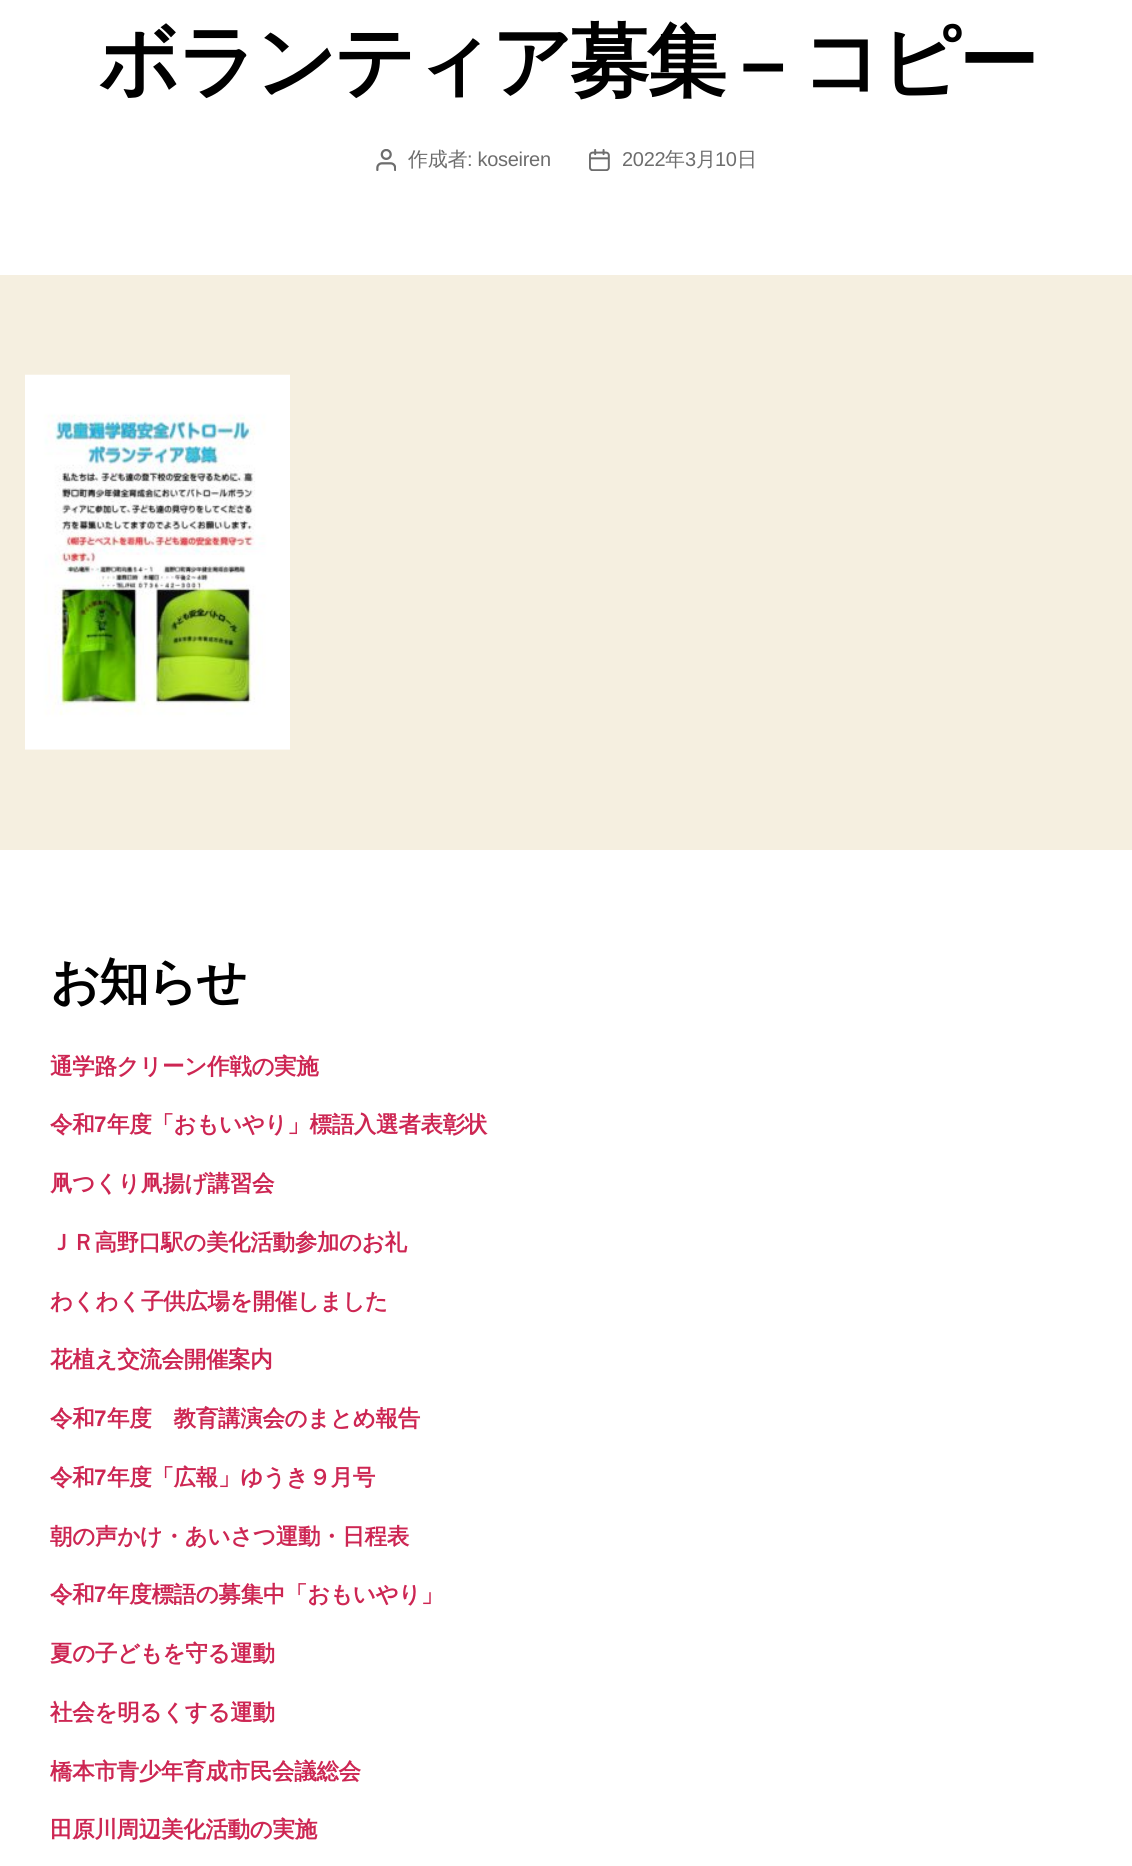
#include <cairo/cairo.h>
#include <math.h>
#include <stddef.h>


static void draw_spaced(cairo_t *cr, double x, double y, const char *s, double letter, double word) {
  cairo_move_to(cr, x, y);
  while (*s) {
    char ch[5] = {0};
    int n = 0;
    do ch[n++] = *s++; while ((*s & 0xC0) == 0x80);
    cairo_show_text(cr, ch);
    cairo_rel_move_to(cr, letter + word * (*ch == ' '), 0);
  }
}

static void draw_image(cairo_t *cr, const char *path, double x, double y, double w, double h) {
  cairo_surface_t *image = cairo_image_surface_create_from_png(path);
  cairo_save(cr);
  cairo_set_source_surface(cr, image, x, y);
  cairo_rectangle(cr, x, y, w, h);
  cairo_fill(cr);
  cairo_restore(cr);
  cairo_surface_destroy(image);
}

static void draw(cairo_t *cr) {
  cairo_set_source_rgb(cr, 245 / 255.0, 239 / 255.0, 224 / 255.0);
  cairo_paint(cr);
  cairo_set_source_rgb(cr, 1, 1, 1);
  cairo_rectangle(cr, 0, 0, 1132, 275);
  cairo_fill(cr);
  draw_image(cr, "images/1.png", 376, 149, 20, 22);
  draw_image(cr, "images/2.png", 589, 149, 21, 22);
  draw_image(cr, "images/3.png", 25, 374, 265, 376);
  cairo_rectangle(cr, 0, 850, 1132, 1016);
  cairo_fill(cr);
  cairo_select_font_face(cr, "WenQuanYi Zen Hei", CAIRO_FONT_SLANT_NORMAL, CAIRO_FONT_WEIGHT_BOLD);
  cairo_set_font_size(cr, 80);
  cairo_set_source_rgb(cr, 0, 0, 0);
  draw_spaced(cr, 98, 89, "ボランティア募集", -3.25, 0);
  cairo_select_font_face(cr, "Liberation Sans", CAIRO_FONT_SLANT_NORMAL, CAIRO_FONT_WEIGHT_BOLD);
  draw_spaced(cr, 741, 89, "–", -3.25, 0);
  cairo_select_font_face(cr, "WenQuanYi Zen Hei", CAIRO_FONT_SLANT_NORMAL, CAIRO_FONT_WEIGHT_BOLD);
  draw_spaced(cr, 801, 89, "コピー", -3.25, 0);
  cairo_select_font_face(cr, "WenQuanYi Zen Hei Medium", CAIRO_FONT_SLANT_NORMAL, CAIRO_FONT_WEIGHT_NORMAL);
  cairo_set_font_size(cr, 20);
  cairo_set_source_rgb(cr, 109 / 255.0, 109 / 255.0, 109 / 255.0);
  draw_spaced(cr, 408, 166, "作成者", -0.3, 0);
  cairo_select_font_face(cr, "Liberation Sans", CAIRO_FONT_SLANT_NORMAL, CAIRO_FONT_WEIGHT_NORMAL);
  draw_spaced(cr, 467, 166, ": koseiren", -0.3, 0);
  draw_spaced(cr, 622, 166, "2022", -0.3, 0);
  cairo_select_font_face(cr, "WenQuanYi Zen Hei Medium", CAIRO_FONT_SLANT_NORMAL, CAIRO_FONT_WEIGHT_NORMAL);
  draw_spaced(cr, 665, 166, "年", -0.3, 0);
  cairo_select_font_face(cr, "Liberation Sans", CAIRO_FONT_SLANT_NORMAL, CAIRO_FONT_WEIGHT_NORMAL);
  draw_spaced(cr, 685, 166, "3", -0.3, 0);
  cairo_select_font_face(cr, "WenQuanYi Zen Hei Medium", CAIRO_FONT_SLANT_NORMAL, CAIRO_FONT_WEIGHT_NORMAL);
  draw_spaced(cr, 696, 166, "月", -0.3, 0);
  cairo_select_font_face(cr, "Liberation Sans", CAIRO_FONT_SLANT_NORMAL, CAIRO_FONT_WEIGHT_NORMAL);
  draw_spaced(cr, 715, 166, "10", -0.3, 0);
  cairo_select_font_face(cr, "WenQuanYi Zen Hei Medium", CAIRO_FONT_SLANT_NORMAL, CAIRO_FONT_WEIGHT_NORMAL);
  draw_spaced(cr, 737, 166, "日", -0.3, 0);
  cairo_select_font_face(cr, "WenQuanYi Zen Hei", CAIRO_FONT_SLANT_NORMAL, CAIRO_FONT_WEIGHT_BOLD);
  cairo_set_font_size(cr, 50);
  cairo_set_source_rgb(cr, 0, 0, 0);
  draw_spaced(cr, 50, 999, "お知らせ", -2, 0);
  cairo_set_font_size(cr, 22.5);
  cairo_set_source_rgb(cr, 205 / 255.0, 38 / 255.0, 83 / 255.0);
  draw_spaced(cr, 50, 1074, "通学路クリーン作戦の実施", -0.3, 0);
  draw_spaced(cr, 50, 1132, "令和", -0.3, 0);
  cairo_select_font_face(cr, "Liberation Sans", CAIRO_FONT_SLANT_NORMAL, CAIRO_FONT_WEIGHT_BOLD);
  draw_spaced(cr, 94, 1132, "7", -0.3, 0);
  cairo_select_font_face(cr, "WenQuanYi Zen Hei", CAIRO_FONT_SLANT_NORMAL, CAIRO_FONT_WEIGHT_BOLD);
  draw_spaced(cr, 107, 1132, "年度「おもいやり」標語入選者表彰状", -0.3, 0);
  draw_spaced(cr, 50, 1191, "凧つくり凧揚げ講習会", -0.3, 0);
  draw_spaced(cr, 50, 1250, "ＪＲ高野口駅の美化活動参加のお礼", -0.3, 0);
  draw_spaced(cr, 50, 1309, "わくわく子供広場を開催しました", -0.3, 0);
  draw_spaced(cr, 50, 1367, "花植え交流会開催案内", -0.3, 0);
  draw_spaced(cr, 50, 1426, "令和", -0.3, 0);
  cairo_select_font_face(cr, "Liberation Sans", CAIRO_FONT_SLANT_NORMAL, CAIRO_FONT_WEIGHT_BOLD);
  draw_spaced(cr, 94, 1426, "7", -0.3, 0);
  cairo_select_font_face(cr, "WenQuanYi Zen Hei", CAIRO_FONT_SLANT_NORMAL, CAIRO_FONT_WEIGHT_BOLD);
  draw_spaced(cr, 107, 1426, "年度　教育講演会のまとめ報告", -0.3, 0);
  draw_spaced(cr, 50, 1485, "令和", -0.3, 0);
  cairo_select_font_face(cr, "Liberation Sans", CAIRO_FONT_SLANT_NORMAL, CAIRO_FONT_WEIGHT_BOLD);
  draw_spaced(cr, 94, 1485, "7", -0.3, 0);
  cairo_select_font_face(cr, "WenQuanYi Zen Hei", CAIRO_FONT_SLANT_NORMAL, CAIRO_FONT_WEIGHT_BOLD);
  draw_spaced(cr, 107, 1485, "年度「広報」ゆうき９月号", -0.3, 0);
  draw_spaced(cr, 50, 1544, "朝の声かけ・あいさつ運動・日程表", -0.3, 0);
  draw_spaced(cr, 50, 1602, "令和", -0.3, 0);
  cairo_select_font_face(cr, "Liberation Sans", CAIRO_FONT_SLANT_NORMAL, CAIRO_FONT_WEIGHT_BOLD);
  draw_spaced(cr, 94, 1602, "7", -0.3, 0);
  cairo_select_font_face(cr, "WenQuanYi Zen Hei", CAIRO_FONT_SLANT_NORMAL, CAIRO_FONT_WEIGHT_BOLD);
  draw_spaced(cr, 107, 1602, "年度標語の募集中「おもいやり」", -0.3, 0);
  draw_spaced(cr, 50, 1661, "夏の子どもを守る運動", -0.3, 0);
  draw_spaced(cr, 50, 1720, "社会を明るくする運動", -0.3, 0);
  draw_spaced(cr, 50, 1779, "橋本市青少年育成市民会議総会", -0.3, 0);
  draw_spaced(cr, 50, 1837, "田原川周辺美化活動の実施", -0.3, 0);
}

int main(void) {
  cairo_surface_t *surface = cairo_image_surface_create(CAIRO_FORMAT_RGB24, 1132, 1866);
  cairo_t *cr = cairo_create(surface);
  cairo_font_options_t *options = cairo_font_options_create();
  cairo_font_options_set_hint_metrics(options, CAIRO_HINT_METRICS_OFF);
  cairo_font_options_set_hint_style(options, CAIRO_HINT_STYLE_NONE);
  cairo_set_font_options(cr, options);
  cairo_set_miter_limit(cr, 4);
  draw(cr);
  cairo_surface_write_to_png(surface, "out.png");
  cairo_font_options_destroy(options);
  cairo_destroy(cr);
  cairo_surface_destroy(surface);
  return 0;
}
